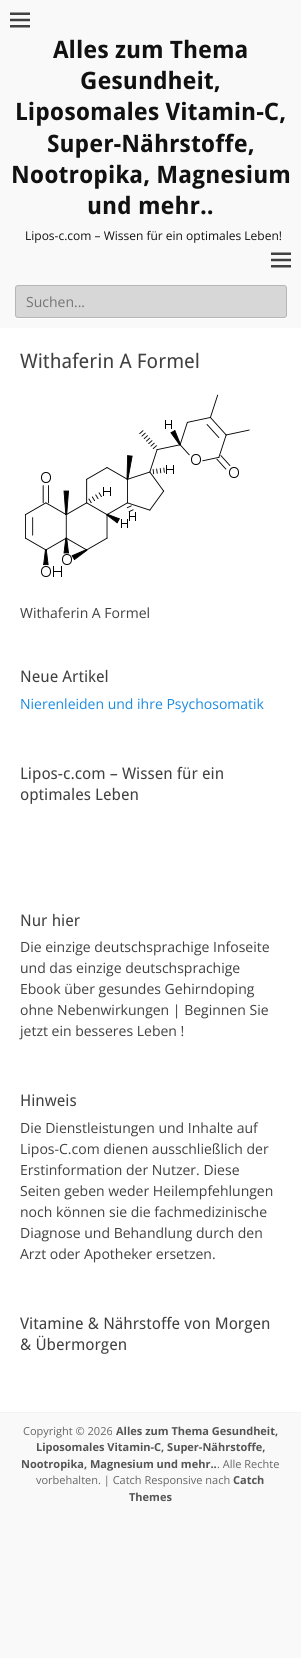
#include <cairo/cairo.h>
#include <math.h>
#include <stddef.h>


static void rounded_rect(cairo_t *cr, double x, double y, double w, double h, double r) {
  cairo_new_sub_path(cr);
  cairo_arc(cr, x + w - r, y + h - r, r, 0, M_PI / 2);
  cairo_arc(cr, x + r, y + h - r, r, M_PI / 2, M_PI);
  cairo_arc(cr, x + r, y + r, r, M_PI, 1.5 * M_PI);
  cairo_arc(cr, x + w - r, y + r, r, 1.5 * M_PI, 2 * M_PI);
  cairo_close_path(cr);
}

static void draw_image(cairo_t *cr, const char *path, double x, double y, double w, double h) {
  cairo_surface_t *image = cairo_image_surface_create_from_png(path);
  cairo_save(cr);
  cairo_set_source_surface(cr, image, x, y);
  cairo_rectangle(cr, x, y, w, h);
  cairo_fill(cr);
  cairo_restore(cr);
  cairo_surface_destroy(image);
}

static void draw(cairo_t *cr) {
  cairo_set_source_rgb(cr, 249 / 255.0, 249 / 255.0, 249 / 255.0);
  cairo_paint(cr);
  draw_image(cr, "images/1.png", 10, 12, 20, 16);
  draw_image(cr, "images/1.png", 271, 252, 20, 16);
  cairo_set_source_rgb(cr, 1, 1, 1);
  cairo_new_path(cr);
  cairo_move_to(cr, 15, 315);
  cairo_line_to(cr, 15, 316);
  cairo_curve_to(cr, 15, 318, 16, 319, 18, 319);
  cairo_line_to(cr, 284, 319);
  cairo_curve_to(cr, 286, 319, 287, 318, 287, 316);
  cairo_line_to(cr, 287, 315);
  cairo_curve_to(cr, 287, 317, 286, 318, 284, 318);
  cairo_line_to(cr, 18, 318);
  cairo_curve_to(cr, 16, 318, 15, 317, 15, 315);
  cairo_close_path(cr);
  cairo_fill(cr);
  cairo_set_source_rgb(cr, 215 / 255.0, 215 / 255.0, 215 / 255.0);
  rounded_rect(cr, 15.5, 285.5, 271, 32, 2.5);
  cairo_fill_preserve(cr);
  cairo_set_source_rgb(cr, 182 / 255.0, 182 / 255.0, 182 / 255.0);
  cairo_set_line_width(cr, 1);
  cairo_stroke(cr);
  cairo_set_source_rgb(cr, 1, 1, 1);
  cairo_rectangle(cr, 0, 328, 301, 1084);
  cairo_fill(cr);
  draw_image(cr, "images/2.png", 25, 394, 225, 183);
  cairo_set_source_rgb(cr, 244 / 255.0, 244 / 255.0, 244 / 255.0);
  cairo_rectangle(cr, 0, 1412, 301, 1);
  cairo_fill(cr);
  cairo_select_font_face(cr, "Droid Sans", CAIRO_FONT_SLANT_NORMAL, CAIRO_FONT_WEIGHT_BOLD);
  cairo_set_font_size(cr, 24);
  cairo_set_source_rgb(cr, 17 / 255.0, 17 / 255.0, 17 / 255.0);
  cairo_move_to(cr, 53, 58);
  cairo_show_text(cr, "Alles zum Thema");
  cairo_move_to(cr, 80, 89);
  cairo_show_text(cr, "Gesundheit,");
  cairo_move_to(cr, 15, 120);
  cairo_show_text(cr, "Liposomales Vitamin-C,");
  cairo_move_to(cr, 47, 152);
  cairo_show_text(cr, "Super-Nährstoffe,");
  cairo_move_to(cr, 11, 183);
  cairo_show_text(cr, "Nootropika, Magnesium");
  cairo_move_to(cr, 87, 214);
  cairo_show_text(cr, "und mehr..");
  cairo_select_font_face(cr, "Open Sans", CAIRO_FONT_SLANT_NORMAL, CAIRO_FONT_WEIGHT_NORMAL);
  cairo_set_font_size(cr, 12);
  cairo_move_to(cr, 25, 240);
  cairo_show_text(cr, "Lipos-c.com – Wissen für ein optimales Leben!");
  cairo_set_font_size(cr, 14);
  cairo_set_source_rgb(cr, 117 / 255.0, 117 / 255.0, 117 / 255.0);
  cairo_move_to(cr, 26, 307);
  cairo_show_text(cr, "Suchen...");
  cairo_select_font_face(cr, "Droid Sans", CAIRO_FONT_SLANT_NORMAL, CAIRO_FONT_WEIGHT_NORMAL);
  cairo_set_font_size(cr, 20);
  cairo_set_source_rgb(cr, 64 / 255.0, 64 / 255.0, 64 / 255.0);
  cairo_move_to(cr, 20, 368);
  cairo_show_text(cr, "Withaferin A Formel");
  cairo_select_font_face(cr, "Open Sans", CAIRO_FONT_SLANT_NORMAL, CAIRO_FONT_WEIGHT_NORMAL);
  cairo_set_font_size(cr, 14);
  cairo_move_to(cr, 20, 618);
  cairo_show_text(cr, "Withaferin A Formel");
  cairo_select_font_face(cr, "Droid Sans", CAIRO_FONT_SLANT_NORMAL, CAIRO_FONT_WEIGHT_NORMAL);
  cairo_set_font_size(cr, 16);
  cairo_move_to(cr, 20, 682);
  cairo_show_text(cr, "Neue Artikel");
  cairo_select_font_face(cr, "Open Sans", CAIRO_FONT_SLANT_NORMAL, CAIRO_FONT_WEIGHT_NORMAL);
  cairo_set_font_size(cr, 14);
  cairo_set_source_rgb(cr, 27 / 255.0, 139 / 255.0, 224 / 255.0);
  cairo_move_to(cr, 20, 709);
  cairo_show_text(cr, "Nierenleiden und ihre Psychosomatik");
  cairo_select_font_face(cr, "Droid Sans", CAIRO_FONT_SLANT_NORMAL, CAIRO_FONT_WEIGHT_NORMAL);
  cairo_set_font_size(cr, 16);
  cairo_set_source_rgb(cr, 64 / 255.0, 64 / 255.0, 64 / 255.0);
  cairo_move_to(cr, 20, 779);
  cairo_show_text(cr, "Lipos-c.com – Wissen für ein");
  cairo_move_to(cr, 20, 800);
  cairo_show_text(cr, "optimales Leben");
  cairo_move_to(cr, 20, 926);
  cairo_show_text(cr, "Nur hier");
  cairo_select_font_face(cr, "Open Sans", CAIRO_FONT_SLANT_NORMAL, CAIRO_FONT_WEIGHT_NORMAL);
  cairo_set_font_size(cr, 14);
  cairo_move_to(cr, 20, 952);
  cairo_show_text(cr, "Die einzige deutschsprachige Infoseite");
  cairo_move_to(cr, 20, 973);
  cairo_show_text(cr, "und das einzige deutschsprachige");
  cairo_move_to(cr, 20, 994);
  cairo_show_text(cr, "Ebook über gesundes Gehirndoping");
  cairo_move_to(cr, 20, 1015);
  cairo_show_text(cr, "ohne Nebenwirkungen | Beginnen Sie");
  cairo_move_to(cr, 20, 1036);
  cairo_show_text(cr, "jetzt ein besseres Leben !");
  cairo_select_font_face(cr, "Droid Sans", CAIRO_FONT_SLANT_NORMAL, CAIRO_FONT_WEIGHT_NORMAL);
  cairo_set_font_size(cr, 16);
  cairo_move_to(cr, 20, 1106);
  cairo_show_text(cr, "Hinweis");
  cairo_select_font_face(cr, "Open Sans", CAIRO_FONT_SLANT_NORMAL, CAIRO_FONT_WEIGHT_NORMAL);
  cairo_set_font_size(cr, 14);
  cairo_move_to(cr, 20, 1133);
  cairo_show_text(cr, "Die Dienstleistungen und Inhalte auf");
  cairo_move_to(cr, 20, 1154);
  cairo_show_text(cr, "Lipos-C.com dienen ausschließlich der");
  cairo_move_to(cr, 20, 1175);
  cairo_show_text(cr, "Erstinformation der Nutzer. Diese");
  cairo_move_to(cr, 20, 1196);
  cairo_show_text(cr, "Seiten geben weder Heilempfehlungen");
  cairo_move_to(cr, 20, 1217);
  cairo_show_text(cr, "noch können sie die fachmedizinische");
  cairo_move_to(cr, 20, 1238);
  cairo_show_text(cr, "Diagnose und Behandlung durch den");
  cairo_move_to(cr, 20, 1259);
  cairo_show_text(cr, "Arzt oder Apotheker ersetzen.");
  cairo_select_font_face(cr, "Droid Sans", CAIRO_FONT_SLANT_NORMAL, CAIRO_FONT_WEIGHT_NORMAL);
  cairo_set_font_size(cr, 16);
  cairo_move_to(cr, 20, 1329);
  cairo_show_text(cr, "Vitamine & Nährstoffe von Morgen");
  cairo_move_to(cr, 20, 1350);
  cairo_show_text(cr, "& Übermorgen");
  cairo_select_font_face(cr, "Open Sans", CAIRO_FONT_SLANT_NORMAL, CAIRO_FONT_WEIGHT_NORMAL);
  cairo_set_font_size(cr, 11);
  cairo_set_source_rgb(cr, 102 / 255.0, 102 / 255.0, 102 / 255.0);
  cairo_move_to(cr, 23, 1435);
  cairo_show_text(cr, "Copyright © 2026");
  cairo_select_font_face(cr, "Open Sans", CAIRO_FONT_SLANT_NORMAL, CAIRO_FONT_WEIGHT_BOLD);
  cairo_set_source_rgb(cr, 85 / 255.0, 85 / 255.0, 85 / 255.0);
  cairo_move_to(cr, 116, 1435);
  cairo_show_text(cr, "Alles zum Thema Gesundheit,");
  cairo_move_to(cr, 36, 1451);
  cairo_show_text(cr, "Liposomales Vitamin-C, Super-Nährstoffe,");
  cairo_move_to(cr, 21, 1468);
  cairo_show_text(cr, "Nootropika, Magnesium und mehr..");
  cairo_select_font_face(cr, "Open Sans", CAIRO_FONT_SLANT_NORMAL, CAIRO_FONT_WEIGHT_NORMAL);
  cairo_set_source_rgb(cr, 102 / 255.0, 102 / 255.0, 102 / 255.0);
  cairo_move_to(cr, 217, 1468);
  cairo_show_text(cr, ". Alle Rechte");
  cairo_move_to(cr, 36, 1484);
  cairo_show_text(cr, "vorbehalten. | Catch Responsive nach");
  cairo_select_font_face(cr, "Open Sans", CAIRO_FONT_SLANT_NORMAL, CAIRO_FONT_WEIGHT_BOLD);
  cairo_set_source_rgb(cr, 85 / 255.0, 85 / 255.0, 85 / 255.0);
  cairo_move_to(cr, 233, 1484);
  cairo_show_text(cr, "Catch");
  cairo_move_to(cr, 129, 1501);
  cairo_show_text(cr, "Themes");
}

int main(void) {
  cairo_surface_t *surface = cairo_image_surface_create(CAIRO_FORMAT_RGB24, 301, 1658);
  cairo_t *cr = cairo_create(surface);
  cairo_font_options_t *options = cairo_font_options_create();
  cairo_font_options_set_hint_metrics(options, CAIRO_HINT_METRICS_OFF);
  cairo_font_options_set_hint_style(options, CAIRO_HINT_STYLE_NONE);
  cairo_set_font_options(cr, options);
  cairo_set_miter_limit(cr, 4);
  draw(cr);
  cairo_surface_write_to_png(surface, "out.png");
  cairo_font_options_destroy(options);
  cairo_destroy(cr);
  cairo_surface_destroy(surface);
  return 0;
}
